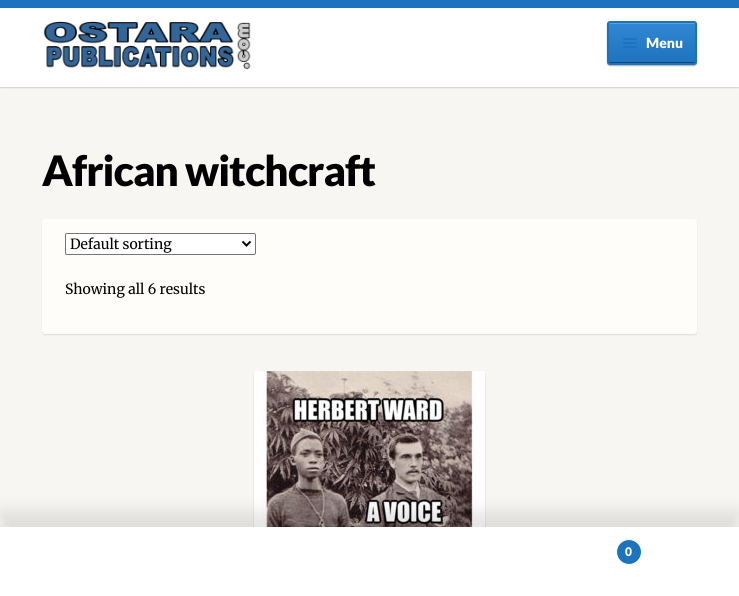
#include <cairo/cairo.h>
#include <math.h>
#include <stddef.h>


static void draw_spaced(cairo_t *cr, double x, double y, const char *s, double letter, double word) {
  cairo_move_to(cr, x, y);
  while (*s) {
    char ch[5] = {0};
    int n = 0;
    do ch[n++] = *s++; while ((*s & 0xC0) == 0x80);
    cairo_show_text(cr, ch);
    cairo_rel_move_to(cr, letter + word * (*ch == ' '), 0);
  }
}

static void rounded_rect(cairo_t *cr, double x, double y, double w, double h, double r) {
  cairo_new_sub_path(cr);
  cairo_arc(cr, x + w - r, y + h - r, r, 0, M_PI / 2);
  cairo_arc(cr, x + r, y + h - r, r, M_PI / 2, M_PI);
  cairo_arc(cr, x + r, y + r, r, M_PI, 1.5 * M_PI);
  cairo_arc(cr, x + w - r, y + r, r, 1.5 * M_PI, 2 * M_PI);
  cairo_close_path(cr);
}

static void draw_shadow(cairo_t *cr, double x, double y, double w, double h, double r, double blur, double alpha) {
  cairo_push_group_with_content(cr, CAIRO_CONTENT_ALPHA);
  cairo_set_operator(cr, CAIRO_OPERATOR_SOURCE);
  for (int i = 15; i >= -15 && fmin(w, h) + blur * i / 3 > 0; i -= 2) {
    double e = blur * i / 6;
    cairo_set_source_rgba(cr, 0, 0, 0, alpha * erfc((i - 1) / 8.5) / 2);
    rounded_rect(cr, x - e, y - e, w + 2 * e, h + 2 * e, fmax(0, fmin(r + e + blur * .6, fmin(w, h) / 2 + e)));
    cairo_fill(cr);
  }
  cairo_pattern_t *soft = cairo_pop_group(cr);
  cairo_mask(cr, soft);
  cairo_pattern_destroy(soft);
}

static void draw_image(cairo_t *cr, const char *path, double x, double y, double w, double h) {
  cairo_surface_t *image = cairo_image_surface_create_from_png(path);
  cairo_save(cr);
  cairo_set_source_surface(cr, image, x, y);
  cairo_rectangle(cr, x, y, w, h);
  cairo_fill(cr);
  cairo_restore(cr);
  cairo_surface_destroy(image);
}

static void draw(cairo_t *cr) {
  cairo_pattern_t *gradient;
  cairo_set_source_rgb(cr, 247 / 255.0, 246 / 255.0, 242 / 255.0);
  cairo_paint(cr);
  cairo_set_source_rgb(cr, 0, 0, 0);
  draw_shadow(cr, 0, 1, 739, 87, 0, 0.5, 0.15);
  cairo_set_source_rgb(cr, 1, 1, 1);
  cairo_rectangle(cr, 0, 8, 739, 79);
  cairo_fill(cr);
  cairo_set_source_rgb(cr, 30 / 255.0, 115 / 255.0, 190 / 255.0);
  cairo_rectangle(cr, 0, 0, 739, 8);
  cairo_fill(cr);
  draw_image(cr, "images/1.png", 43, 21, 208, 49);
  cairo_set_source_rgb(cr, 0, 0, 0);
  draw_shadow(cr, 607, 22, 90, 44, 3, 0.5, 0.3);
  cairo_save(cr);
  rounded_rect(cr, 607, 21, 90, 44, 3);
  cairo_clip(cr);
  gradient = cairo_pattern_create_linear(652, 23, 652, 63);
  cairo_pattern_add_color_stop_rgba(gradient, 0, 50 / 255.0, 135 / 255.0, 210 / 255.0, 1);
  cairo_pattern_add_color_stop_rgba(gradient, 1, 30 / 255.0, 115 / 255.0, 190 / 255.0, 1);
  cairo_set_source(cr, gradient);
  cairo_pattern_destroy(gradient);
  cairo_rectangle(cr, 607, 23, 90, 40);
  cairo_fill(cr);
  cairo_restore(cr);
  cairo_set_source_rgb(cr, 91 / 255.0, 159 / 255.0, 219 / 255.0);
  cairo_new_path(cr);
  cairo_move_to(cr, 610, 24);
  cairo_line_to(cr, 694, 24);
  cairo_curve_to(cr, 695, 24, 695, 24, 695, 25);
  cairo_curve_to(cr, 695, 24, 695, 23, 694, 23);
  cairo_line_to(cr, 610, 23);
  cairo_curve_to(cr, 609, 23, 609, 24, 609, 25);
  cairo_curve_to(cr, 609, 24, 609, 24, 610, 24);
  cairo_close_path(cr);
  cairo_fill(cr);
  cairo_set_source_rgb(cr, 18 / 255.0, 69 / 255.0, 114 / 255.0);
  cairo_new_path(cr);
  cairo_move_to(cr, 609, 61);
  cairo_curve_to(cr, 609, 62, 609, 63, 610, 63);
  cairo_line_to(cr, 694, 63);
  cairo_curve_to(cr, 695, 63, 695, 62, 695, 61);
  cairo_curve_to(cr, 695, 62, 695, 62, 694, 62);
  cairo_line_to(cr, 610, 62);
  cairo_curve_to(cr, 609, 62, 609, 62, 609, 61);
  cairo_close_path(cr);
  cairo_fill(cr);
  rounded_rect(cr, 608, 22, 88, 42, 2);
  cairo_set_source_rgb(cr, 30 / 255.0, 115 / 255.0, 190 / 255.0);
  cairo_stroke(cr);
  rounded_rect(cr, 623, 38, 14, 2, 1);
  cairo_fill(cr);
  rounded_rect(cr, 623, 42, 14, 2, 1);
  cairo_fill(cr);
  rounded_rect(cr, 623, 46, 14, 2, 1);
  cairo_fill(cr);
  cairo_set_source_rgb(cr, 0, 0, 0);
  draw_shadow(cr, 42, 220, 655, 115, 3, 0.5, 0.1);
  cairo_set_source_rgb(cr, 254 / 255.0, 253 / 255.0, 249 / 255.0);
  rounded_rect(cr, 42, 219, 655, 115, 3);
  cairo_fill(cr);
  cairo_set_source_rgb(cr, 1, 1, 1);
  rounded_rect(cr, 65.5, 233.5, 190, 21, 1.5);
  cairo_fill_preserve(cr);
  cairo_set_source_rgb(cr, 118 / 255.0, 118 / 255.0, 118 / 255.0);
  cairo_set_line_width(cr, 1);
  cairo_stroke(cr);
  cairo_new_path(cr);
  cairo_move_to(cr, 242.5, 241.5);
  cairo_line_to(cr, 246.5, 245.5);
  cairo_line_to(cr, 250.5, 241.5);
  cairo_set_source_rgb(cr, 0, 0, 0);
  cairo_set_line_width(cr, 2);
  cairo_stroke(cr);
  cairo_set_source_rgb(cr, 0, 0, 0);
  draw_shadow(cr, 254, 372, 231, 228, 2, 0.5, 0.2);
  draw_image(cr, "images/2.png", 254, 371, 231, 156);
  draw_shadow(cr, 0, 511, 739, 69, 0, 8, 0.1);
  cairo_set_source_rgb(cr, 1, 1, 1);
  cairo_rectangle(cr, 0, 527, 739, 1);
  cairo_fill(cr);
  cairo_rectangle(cr, 0, 528, 739, 68);
  cairo_fill(cr);
  cairo_set_source_rgb(cr, 30 / 255.0, 115 / 255.0, 190 / 255.0);
  cairo_arc(cr, 629, 552, 12.5, 0, 2 * M_PI);
  cairo_fill_preserve(cr);
  cairo_set_source_rgb(cr, 1, 1, 1);
  cairo_set_line_width(cr, 1);
  cairo_stroke(cr);
  cairo_select_font_face(cr, "Lato Black", CAIRO_FONT_SLANT_NORMAL, CAIRO_FONT_WEIGHT_NORMAL);
  cairo_set_font_size(cr, 14);
  cairo_move_to(cr, 646, 48);
  cairo_show_text(cr, "Menu");
  cairo_set_font_size(cr, 42);
  cairo_set_source_rgb(cr, 0, 0, 0);
  draw_spaced(cr, 42, 186, "African witchcraft", -1, 0);
  cairo_select_font_face(cr, "Merriweather", CAIRO_FONT_SLANT_NORMAL, CAIRO_FONT_WEIGHT_NORMAL);
  cairo_set_font_size(cr, 14);
  cairo_move_to(cr, 70, 249);
  cairo_show_text(cr, "Default sorting");
  cairo_move_to(cr, 65, 294);
  cairo_show_text(cr, "Showing all 6 results");
  cairo_select_font_face(cr, "Lato Black", CAIRO_FONT_SLANT_NORMAL, CAIRO_FONT_WEIGHT_NORMAL);
  cairo_set_font_size(cr, 12);
  cairo_set_source_rgb(cr, 1, 1, 1);
  cairo_move_to(cr, 625, 556);
  cairo_show_text(cr, "0");
}

int main(void) {
  cairo_surface_t *surface = cairo_image_surface_create(CAIRO_FORMAT_RGB24, 739, 596);
  cairo_t *cr = cairo_create(surface);
  cairo_font_options_t *options = cairo_font_options_create();
  cairo_font_options_set_hint_metrics(options, CAIRO_HINT_METRICS_OFF);
  cairo_font_options_set_hint_style(options, CAIRO_HINT_STYLE_NONE);
  cairo_set_font_options(cr, options);
  cairo_set_miter_limit(cr, 4);
  draw(cr);
  cairo_surface_write_to_png(surface, "out.png");
  cairo_font_options_destroy(options);
  cairo_destroy(cr);
  cairo_surface_destroy(surface);
  return 0;
}
